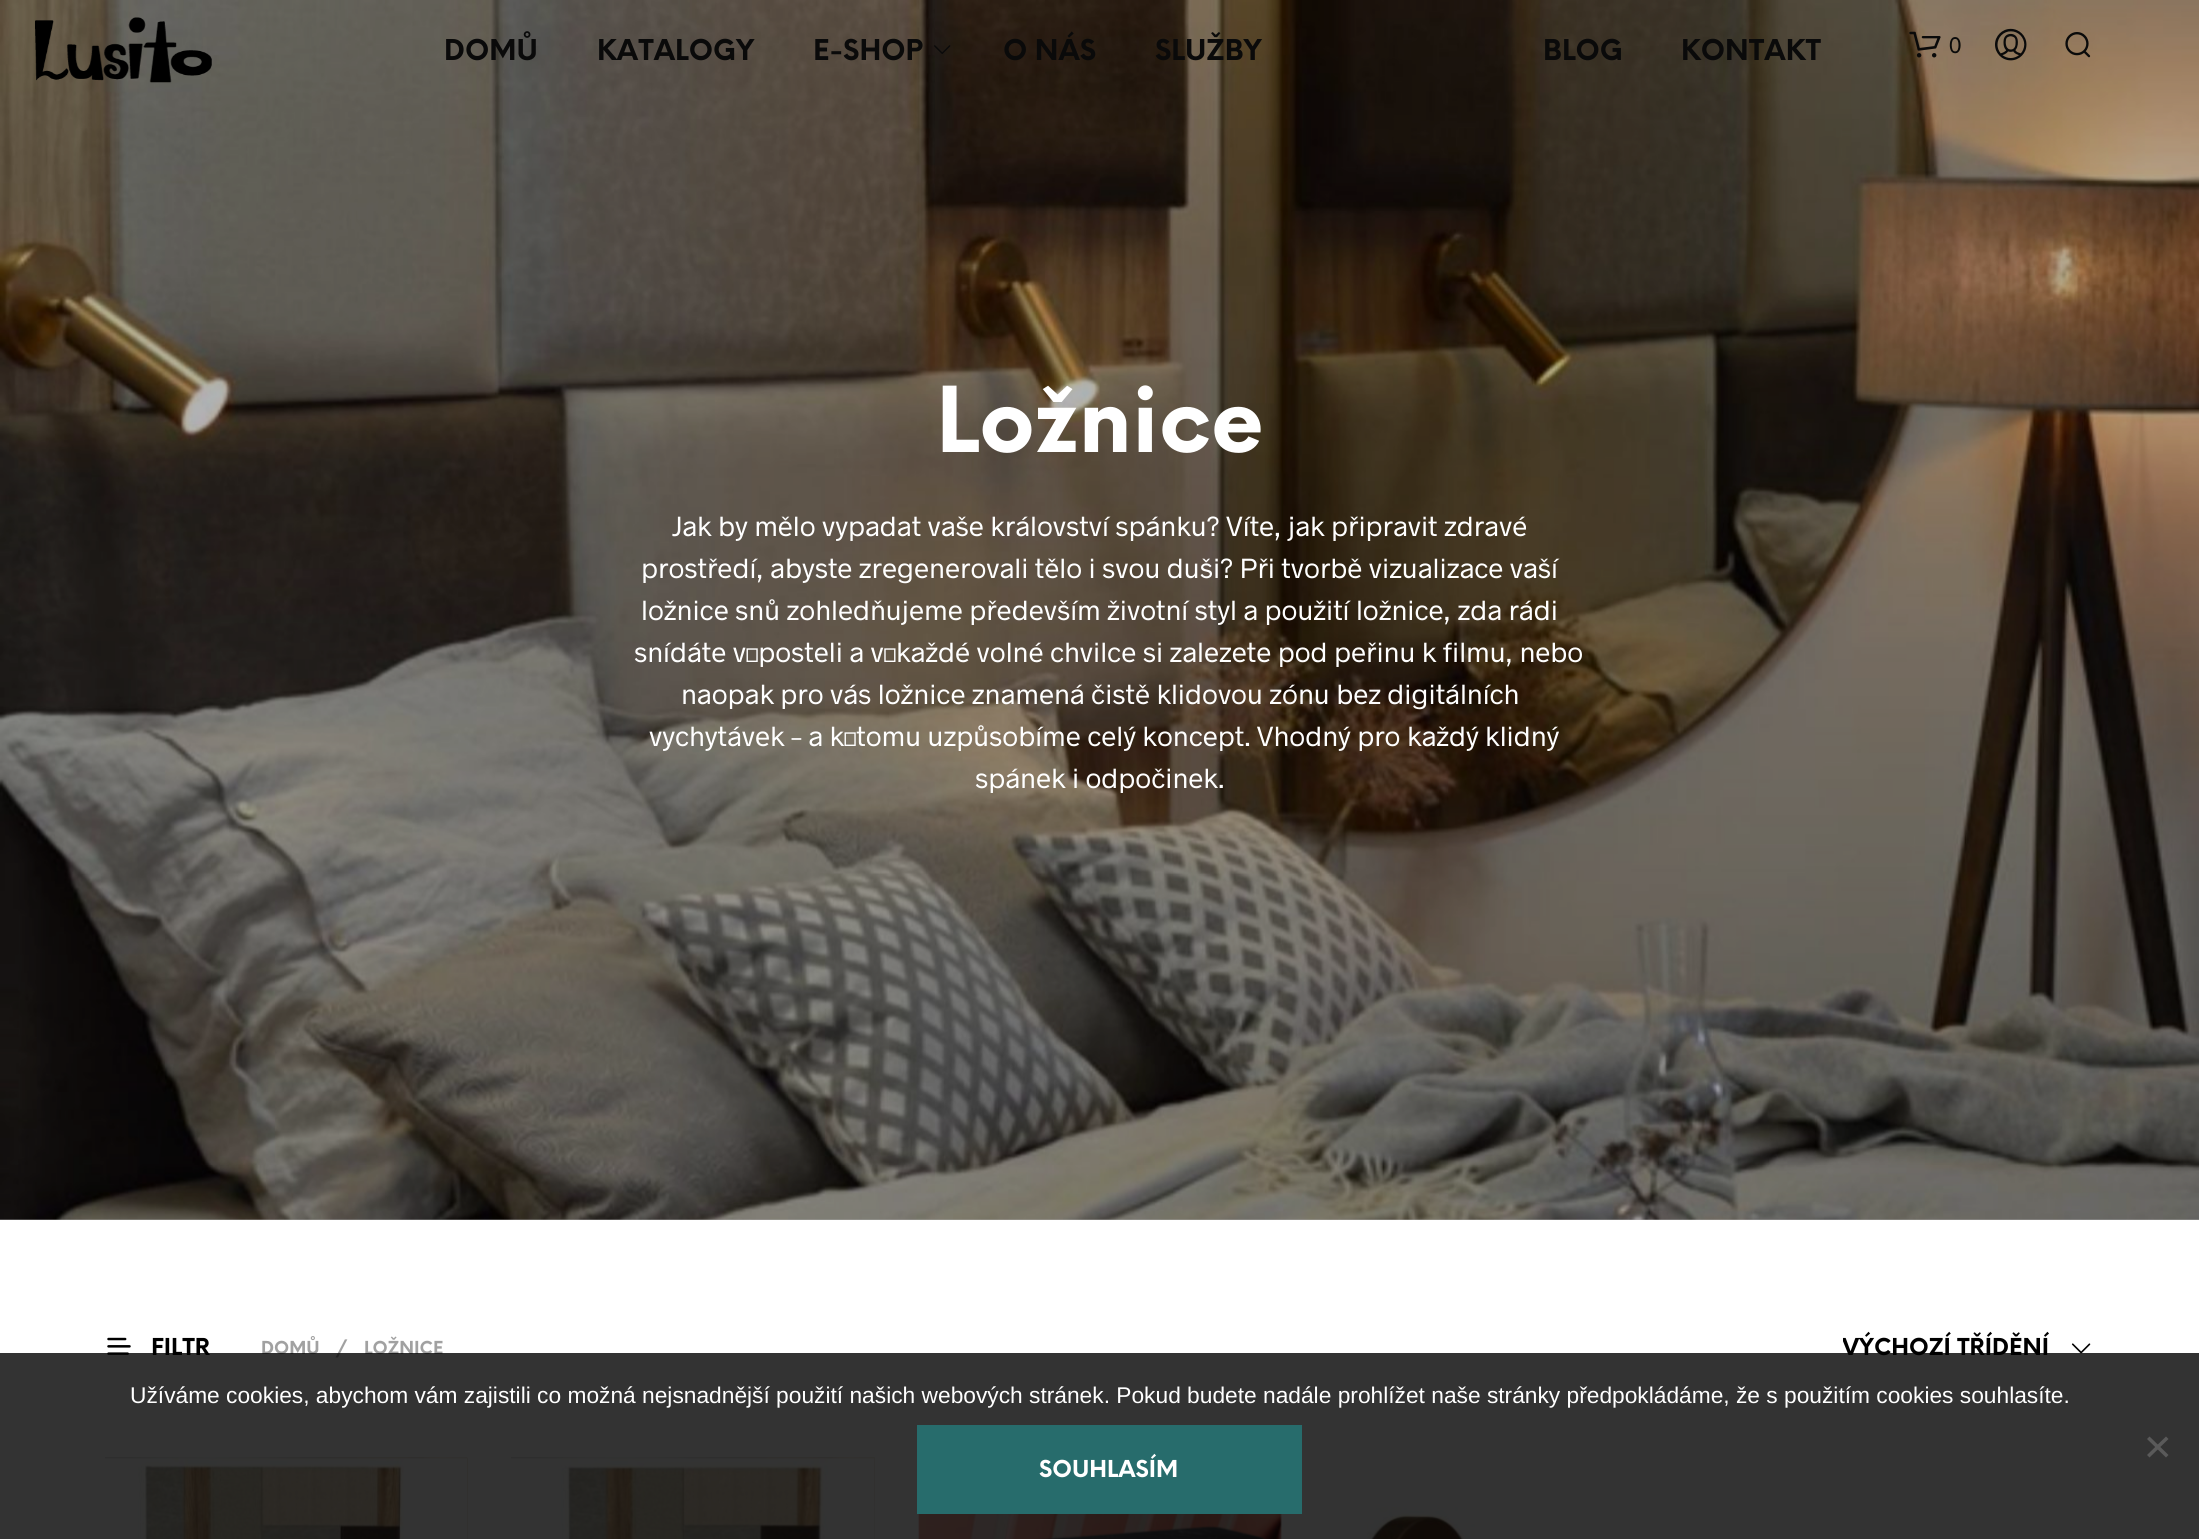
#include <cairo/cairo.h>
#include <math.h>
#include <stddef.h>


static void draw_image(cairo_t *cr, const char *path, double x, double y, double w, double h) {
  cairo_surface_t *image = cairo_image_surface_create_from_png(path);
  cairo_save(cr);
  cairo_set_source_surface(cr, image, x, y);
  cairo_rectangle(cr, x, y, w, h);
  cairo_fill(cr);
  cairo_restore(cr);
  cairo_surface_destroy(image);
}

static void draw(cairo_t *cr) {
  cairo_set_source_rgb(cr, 1, 1, 1);
  cairo_paint(cr);
  cairo_set_source_rgb(cr, 179 / 255.0, 179 / 255.0, 179 / 255.0);
  cairo_rectangle(cr, 0, 1219, 2199, 1);
  cairo_fill(cr);
  draw_image(cr, "images/6.png", 0, 0, 2199, 1220);
  draw_image(cr, "images/1.png", 35, 17, 177, 66);
  draw_image(cr, "images/2.png", 934, 45, 17, 9);
  draw_image(cr, "images/3.png", 1909, 31, 32, 27);
  draw_image(cr, "images/4.png", 1995, 28, 32, 33);
  draw_image(cr, "images/5.png", 2065, 32, 26, 26);
  draw_image(cr, "images/7.png", 107, 1337, 24, 18);
  draw_image(cr, "images/8.png", 2071, 1343, 20, 11);
  draw_image(cr, "images/9.png", 105, 1457, 363, 82);
  draw_image(cr, "images/10.png", 105, 1457, 363, 82);
  draw_image(cr, "images/11.png", 511, 1457, 364, 82);
  draw_image(cr, "images/12.png", 511, 1457, 364, 82);
  draw_image(cr, "images/13.png", 918, 1514, 364, 25);
  draw_image(cr, "images/14.png", 1034, 1525, 231, 14);
  draw_image(cr, "images/15.png", 1367, 1480, 174, 59);
  cairo_set_source_rgb(cr, 251 / 255.0, 251 / 255.0, 251 / 255.0);
  cairo_rectangle(cr, 2094, 1535, 1, 4);
  cairo_fill(cr);
  cairo_select_font_face(cr, "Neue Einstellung", CAIRO_FONT_SLANT_NORMAL, CAIRO_FONT_WEIGHT_BOLD);
  cairo_set_font_size(cr, 28);
  cairo_set_source_rgb(cr, 10 / 255.0, 10 / 255.0, 10 / 255.0);
  cairo_move_to(cr, 444, 60);
  cairo_show_text(cr, "DOMŮ");
  cairo_move_to(cr, 597, 60);
  cairo_show_text(cr, "KATALOGY");
  cairo_move_to(cr, 813, 60);
  cairo_show_text(cr, "E-SHOP");
  cairo_move_to(cr, 1003, 60);
  cairo_show_text(cr, "O NÁS");
  cairo_move_to(cr, 1155, 60);
  cairo_show_text(cr, "SLUŽBY");
  cairo_move_to(cr, 1543, 60);
  cairo_show_text(cr, "BLOG");
  cairo_move_to(cr, 1681, 60);
  cairo_show_text(cr, "KONTAKT");
  cairo_select_font_face(cr, "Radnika", CAIRO_FONT_SLANT_NORMAL, CAIRO_FONT_WEIGHT_NORMAL);
  cairo_set_font_size(cr, 22.75);
  cairo_move_to(cr, 1949, 53);
  cairo_show_text(cr, "0");
  cairo_select_font_face(cr, "Neue Einstellung", CAIRO_FONT_SLANT_NORMAL, CAIRO_FONT_WEIGHT_BOLD);
  cairo_set_font_size(cr, 88.5);
  cairo_set_source_rgb(cr, 1, 1, 1);
  cairo_move_to(cr, 936, 452);
  cairo_show_text(cr, "Ložnice");
  cairo_select_font_face(cr, "Radnika", CAIRO_FONT_SLANT_NORMAL, CAIRO_FONT_WEIGHT_NORMAL);
  cairo_set_font_size(cr, 28);
  cairo_move_to(cr, 672, 536);
  cairo_show_text(cr, "Jak by mělo vypadat vaše království spánku? Víte, jak připravit zdravé");
  cairo_move_to(cr, 641, 578);
  cairo_show_text(cr, "prostředí, abyste zregenerovali tělo i svou duši? Při tvorbě vizualizace vaší");
  cairo_move_to(cr, 641, 620);
  cairo_show_text(cr, "ložnice snů zohledňujeme především životní styl a použití ložnice, zda rádi");
  cairo_move_to(cr, 634, 662);
  cairo_show_text(cr, "snídáte v posteli a v každé volné chvilce si zalezete pod peřinu k filmu, nebo");
  cairo_move_to(cr, 681, 704);
  cairo_show_text(cr, "naopak pro vás ložnice znamená čistě klidovou zónu bez digitálních");
  cairo_move_to(cr, 649, 746);
  cairo_show_text(cr, "vychytávek – a k tomu uzpůsobíme celý koncept. Vhodný pro každý klidný");
  cairo_move_to(cr, 975, 788);
  cairo_show_text(cr, "spánek i odpočinek.");
  cairo_select_font_face(cr, "Neue Einstellung", CAIRO_FONT_SLANT_NORMAL, CAIRO_FONT_WEIGHT_BOLD);
  cairo_set_font_size(cr, 22.75);
  cairo_set_source_rgb(cr, 0, 0, 0);
  cairo_move_to(cr, 151, 1355);
  cairo_show_text(cr, "FILTR");
  cairo_set_font_size(cr, 17.5);
  cairo_set_source_rgb(cr, 161 / 255.0, 161 / 255.0, 161 / 255.0);
  cairo_move_to(cr, 261, 1354);
  cairo_show_text(cr, "DOMŮ");
  cairo_move_to(cr, 336, 1354);
  cairo_show_text(cr, "/");
  cairo_move_to(cr, 364, 1354);
  cairo_show_text(cr, "LOŽNICE");
  cairo_save(cr);
  cairo_rectangle(cr, 1843, 1327, 252, 49);
  cairo_clip(cr);
  cairo_set_font_size(cr, 22.75);
  cairo_set_source_rgb(cr, 0, 0, 0);
  cairo_move_to(cr, 1842, 1355);
  cairo_show_text(cr, "VÝCHOZÍ TŘÍDĚNÍ");
  cairo_restore(cr);
  cairo_set_source_rgba(cr, 0, 0, 0, 0.8);
  cairo_rectangle(cr, 0, 1353, 2199, 186);
  cairo_fill(cr);
  cairo_select_font_face(cr, "Liberation Sans", CAIRO_FONT_SLANT_NORMAL, CAIRO_FONT_WEIGHT_NORMAL);
  cairo_set_font_size(cr, 22.75);
  cairo_set_source_rgb(cr, 1, 1, 1);
  cairo_move_to(cr, 130, 1403);
  cairo_show_text(cr, "Užíváme cookies, abychom vám zajistili co možná nejsnadnější použití našich webových stránek. Pokud budete nadále prohlížet naše stránky předpokládáme, že s použitím cookies souhlasíte.");
  cairo_set_source_rgb(cr, 90 / 255.0, 90 / 255.0, 90 / 255.0);
  cairo_new_path(cr);
  cairo_move_to(cr, 2166, 1436.5);
  cairo_line_to(cr, 2168.5, 1439);
  cairo_line_to(cr, 2149.5, 1457.5);
  cairo_line_to(cr, 2147, 1455);
  cairo_close_path(cr);
  cairo_fill(cr);
  cairo_new_path(cr);
  cairo_move_to(cr, 2147, 1439);
  cairo_line_to(cr, 2149.5, 1436.5);
  cairo_line_to(cr, 2168.5, 1455);
  cairo_line_to(cr, 2166, 1457.5);
  cairo_close_path(cr);
  cairo_fill(cr);
  cairo_set_source_rgb(cr, 39 / 255.0, 108 / 255.0, 108 / 255.0);
  cairo_rectangle(cr, 917, 1425, 385, 89);
  cairo_fill(cr);
  cairo_select_font_face(cr, "Neue Einstellung", CAIRO_FONT_SLANT_NORMAL, CAIRO_FONT_WEIGHT_BOLD);
  cairo_set_source_rgb(cr, 1, 1, 1);
  cairo_move_to(cr, 1039, 1477);
  cairo_show_text(cr, "SOUHLASÍM");
}

int main(void) {
  cairo_surface_t *surface = cairo_image_surface_create(CAIRO_FORMAT_RGB24, 2199, 1539);
  cairo_t *cr = cairo_create(surface);
  cairo_font_options_t *options = cairo_font_options_create();
  cairo_font_options_set_hint_metrics(options, CAIRO_HINT_METRICS_OFF);
  cairo_font_options_set_hint_style(options, CAIRO_HINT_STYLE_NONE);
  cairo_set_font_options(cr, options);
  cairo_set_miter_limit(cr, 4);
  draw(cr);
  cairo_surface_write_to_png(surface, "out.png");
  cairo_font_options_destroy(options);
  cairo_destroy(cr);
  cairo_surface_destroy(surface);
  return 0;
}
